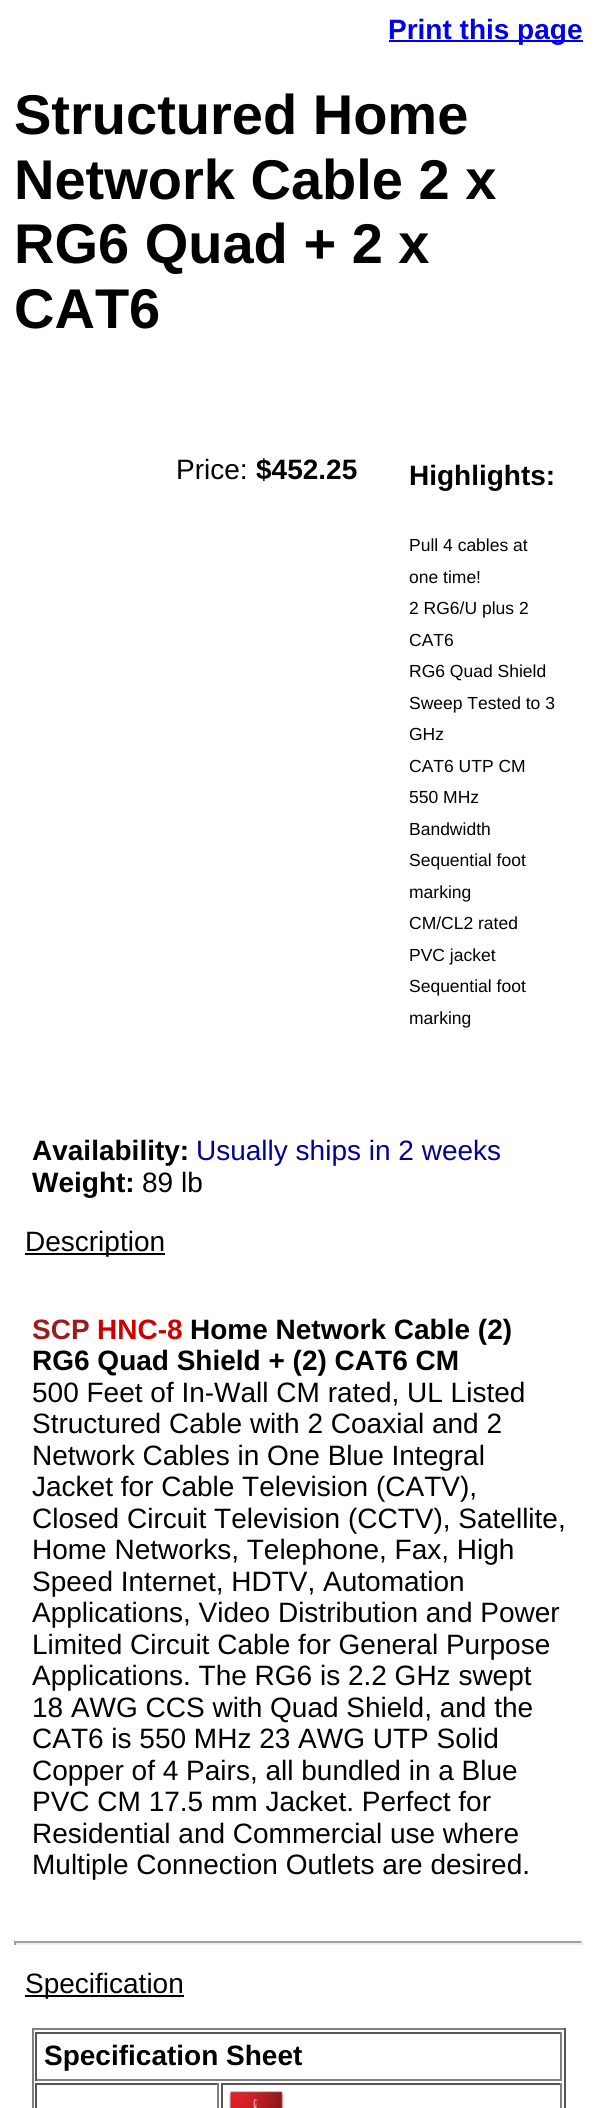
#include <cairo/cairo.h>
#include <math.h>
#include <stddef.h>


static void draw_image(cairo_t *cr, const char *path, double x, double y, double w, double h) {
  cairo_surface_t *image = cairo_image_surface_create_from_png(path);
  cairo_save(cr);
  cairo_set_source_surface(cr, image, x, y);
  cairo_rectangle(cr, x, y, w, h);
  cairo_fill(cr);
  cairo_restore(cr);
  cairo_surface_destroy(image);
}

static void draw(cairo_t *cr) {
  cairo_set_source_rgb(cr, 1, 1, 1);
  cairo_paint(cr);
  cairo_set_source_rgb(cr, 0, 0, 238 / 255.0);
  cairo_rectangle(cr, 389, 40, 194, 2);
  cairo_fill(cr);
  cairo_set_source_rgb(cr, 0, 0, 0);
  cairo_rectangle(cr, 25, 1253, 140, 2);
  cairo_fill(cr);
  cairo_set_source_rgb(cr, 159 / 255.0, 159 / 255.0, 159 / 255.0);
  cairo_rectangle(cr, 14, 1941, 569, 2);
  cairo_fill(cr);
  cairo_set_source_rgb(cr, 238 / 255.0, 238 / 255.0, 238 / 255.0);
  cairo_rectangle(cr, 581, 1941, 2, 4);
  cairo_fill(cr);
  cairo_rectangle(cr, 14, 1943, 569, 2);
  cairo_fill(cr);
  cairo_set_source_rgb(cr, 159 / 255.0, 159 / 255.0, 159 / 255.0);
  cairo_rectangle(cr, 14, 1941, 2, 4);
  cairo_fill(cr);
  cairo_set_source_rgb(cr, 0, 0, 0);
  cairo_rectangle(cr, 25, 1995, 159, 2);
  cairo_fill(cr);
  cairo_set_source_rgb(cr, 128 / 255.0, 128 / 255.0, 128 / 255.0);
  cairo_rectangle(cr, 32, 2028, 533, 2);
  cairo_fill(cr);
  cairo_set_source_rgb(cr, 85 / 255.0, 85 / 255.0, 85 / 255.0);
  cairo_rectangle(cr, 564, 2028, 2, 80);
  cairo_fill(cr);
  cairo_set_source_rgb(cr, 128 / 255.0, 128 / 255.0, 128 / 255.0);
  cairo_rectangle(cr, 32, 2028, 2, 80);
  cairo_fill(cr);
  cairo_set_source_rgb(cr, 85 / 255.0, 85 / 255.0, 85 / 255.0);
  cairo_rectangle(cr, 35, 2032, 527, 2);
  cairo_fill(cr);
  cairo_set_source_rgb(cr, 128 / 255.0, 128 / 255.0, 128 / 255.0);
  cairo_rectangle(cr, 560, 2032, 2, 49);
  cairo_fill(cr);
  cairo_rectangle(cr, 35, 2079, 527, 2);
  cairo_fill(cr);
  cairo_set_source_rgb(cr, 85 / 255.0, 85 / 255.0, 85 / 255.0);
  cairo_rectangle(cr, 35, 2032, 2, 49);
  cairo_fill(cr);
  cairo_rectangle(cr, 35, 2083, 184, 2);
  cairo_fill(cr);
  cairo_set_source_rgb(cr, 128 / 255.0, 128 / 255.0, 128 / 255.0);
  cairo_rectangle(cr, 217, 2083, 2, 25);
  cairo_fill(cr);
  cairo_set_source_rgb(cr, 85 / 255.0, 85 / 255.0, 85 / 255.0);
  cairo_rectangle(cr, 35, 2083, 2, 25);
  cairo_fill(cr);
  cairo_rectangle(cr, 221, 2083, 341, 2);
  cairo_fill(cr);
  cairo_set_source_rgb(cr, 128 / 255.0, 128 / 255.0, 128 / 255.0);
  cairo_rectangle(cr, 560, 2083, 2, 25);
  cairo_fill(cr);
  cairo_set_source_rgb(cr, 85 / 255.0, 85 / 255.0, 85 / 255.0);
  cairo_rectangle(cr, 221, 2083, 2, 25);
  cairo_fill(cr);
  draw_image(cr, "images/1.png", 229, 2091, 56, 17);
  cairo_select_font_face(cr, "Liberation Sans", CAIRO_FONT_SLANT_NORMAL, CAIRO_FONT_WEIGHT_BOLD);
  cairo_set_font_size(cr, 28);
  cairo_set_source_rgb(cr, 0, 0, 238 / 255.0);
  cairo_move_to(cr, 388, 39);
  cairo_show_text(cr, "Print this page");
  cairo_set_font_size(cr, 56);
  cairo_set_source_rgb(cr, 0, 0, 0);
  cairo_move_to(cr, 14, 134);
  cairo_show_text(cr, "Structured Home");
  cairo_move_to(cr, 14, 199);
  cairo_show_text(cr, "Network Cable 2 x");
  cairo_move_to(cr, 14, 263);
  cairo_show_text(cr, "RG6 Quad + 2 x");
  cairo_move_to(cr, 14, 328);
  cairo_show_text(cr, "CAT6");
  cairo_select_font_face(cr, "Liberation Sans", CAIRO_FONT_SLANT_NORMAL, CAIRO_FONT_WEIGHT_NORMAL);
  cairo_set_font_size(cr, 28);
  cairo_move_to(cr, 176, 479);
  cairo_show_text(cr, "Price:");
  cairo_select_font_face(cr, "Liberation Sans", CAIRO_FONT_SLANT_NORMAL, CAIRO_FONT_WEIGHT_BOLD);
  cairo_move_to(cr, 256, 479);
  cairo_show_text(cr, "$452.25");
  cairo_move_to(cr, 409, 485);
  cairo_show_text(cr, "Highlights:");
  cairo_select_font_face(cr, "Liberation Sans", CAIRO_FONT_SLANT_NORMAL, CAIRO_FONT_WEIGHT_NORMAL);
  cairo_set_font_size(cr, 17.5);
  cairo_move_to(cr, 409, 551);
  cairo_show_text(cr, "Pull 4 cables at");
  cairo_move_to(cr, 409, 583);
  cairo_show_text(cr, "one time!");
  cairo_move_to(cr, 409, 614);
  cairo_show_text(cr, "2 RG6/U plus 2");
  cairo_move_to(cr, 409, 646);
  cairo_show_text(cr, "CAT6");
  cairo_move_to(cr, 409, 677);
  cairo_show_text(cr, "RG6 Quad Shield");
  cairo_move_to(cr, 409, 709);
  cairo_show_text(cr, "Sweep Tested to 3");
  cairo_move_to(cr, 409, 740);
  cairo_show_text(cr, "GHz");
  cairo_move_to(cr, 409, 772);
  cairo_show_text(cr, "CAT6 UTP CM");
  cairo_move_to(cr, 409, 803);
  cairo_show_text(cr, "550 MHz");
  cairo_move_to(cr, 409, 835);
  cairo_show_text(cr, "Bandwidth");
  cairo_move_to(cr, 409, 866);
  cairo_show_text(cr, "Sequential foot");
  cairo_move_to(cr, 409, 898);
  cairo_show_text(cr, "marking");
  cairo_move_to(cr, 409, 929);
  cairo_show_text(cr, "CM/CL2 rated");
  cairo_move_to(cr, 409, 961);
  cairo_show_text(cr, "PVC jacket");
  cairo_move_to(cr, 409, 992);
  cairo_show_text(cr, "Sequential foot");
  cairo_move_to(cr, 409, 1024);
  cairo_show_text(cr, "marking");
  cairo_select_font_face(cr, "Liberation Sans", CAIRO_FONT_SLANT_NORMAL, CAIRO_FONT_WEIGHT_BOLD);
  cairo_set_font_size(cr, 28);
  cairo_move_to(cr, 32, 1160);
  cairo_show_text(cr, "Availability:");
  cairo_select_font_face(cr, "Liberation Sans", CAIRO_FONT_SLANT_NORMAL, CAIRO_FONT_WEIGHT_NORMAL);
  cairo_set_source_rgb(cr, 1 / 255.0, 1 / 255.0, 151 / 255.0);
  cairo_move_to(cr, 196, 1160);
  cairo_show_text(cr, "Usually ships in 2 weeks");
  cairo_select_font_face(cr, "Liberation Sans", CAIRO_FONT_SLANT_NORMAL, CAIRO_FONT_WEIGHT_BOLD);
  cairo_set_source_rgb(cr, 0, 0, 0);
  cairo_move_to(cr, 32, 1192);
  cairo_show_text(cr, "Weight:");
  cairo_select_font_face(cr, "Liberation Sans", CAIRO_FONT_SLANT_NORMAL, CAIRO_FONT_WEIGHT_NORMAL);
  cairo_move_to(cr, 142, 1192);
  cairo_show_text(cr, "89 lb");
  cairo_move_to(cr, 25, 1251);
  cairo_show_text(cr, "Description");
  cairo_select_font_face(cr, "Liberation Sans", CAIRO_FONT_SLANT_NORMAL, CAIRO_FONT_WEIGHT_BOLD);
  cairo_set_source_rgb(cr, 156 / 255.0, 29 / 255.0, 29 / 255.0);
  cairo_move_to(cr, 32, 1339);
  cairo_show_text(cr, "SCP");
  cairo_set_source_rgb(cr, 204 / 255.0, 0, 0);
  cairo_move_to(cr, 97, 1339);
  cairo_show_text(cr, "HNC-8");
  cairo_set_source_rgb(cr, 0, 0, 0);
  cairo_move_to(cr, 190, 1339);
  cairo_show_text(cr, "Home Network Cable (2)");
  cairo_move_to(cr, 32, 1370);
  cairo_show_text(cr, "RG6 Quad Shield + (2) CAT6 CM");
  cairo_select_font_face(cr, "Liberation Sans", CAIRO_FONT_SLANT_NORMAL, CAIRO_FONT_WEIGHT_NORMAL);
  cairo_move_to(cr, 32, 1402);
  cairo_show_text(cr, "500 Feet of In-Wall CM rated, UL Listed");
  cairo_move_to(cr, 32, 1433);
  cairo_show_text(cr, "Structured Cable with 2 Coaxial and 2");
  cairo_move_to(cr, 32, 1465);
  cairo_show_text(cr, "Network Cables in One Blue Integral");
  cairo_move_to(cr, 32, 1496);
  cairo_show_text(cr, "Jacket for Cable Television (CATV),");
  cairo_move_to(cr, 32, 1528);
  cairo_show_text(cr, "Closed Circuit Television (CCTV), Satellite,");
  cairo_move_to(cr, 32, 1559);
  cairo_show_text(cr, "Home Networks, Telephone, Fax, High");
  cairo_move_to(cr, 32, 1591);
  cairo_show_text(cr, "Speed Internet, HDTV, Automation");
  cairo_move_to(cr, 32, 1622);
  cairo_show_text(cr, "Applications, Video Distribution and Power");
  cairo_move_to(cr, 32, 1654);
  cairo_show_text(cr, "Limited Circuit Cable for General Purpose");
  cairo_move_to(cr, 32, 1685);
  cairo_show_text(cr, "Applications. The RG6 is 2.2 GHz swept");
  cairo_move_to(cr, 32, 1717);
  cairo_show_text(cr, "18 AWG CCS with Quad Shield, and the");
  cairo_move_to(cr, 32, 1748);
  cairo_show_text(cr, "CAT6 is 550 MHz 23 AWG UTP Solid");
  cairo_move_to(cr, 32, 1780);
  cairo_show_text(cr, "Copper of 4 Pairs, all bundled in a Blue");
  cairo_move_to(cr, 32, 1811);
  cairo_show_text(cr, "PVC CM 17.5 mm Jacket. Perfect for");
  cairo_move_to(cr, 32, 1843);
  cairo_show_text(cr, "Residential and Commercial use where");
  cairo_move_to(cr, 32, 1874);
  cairo_show_text(cr, "Multiple Connection Outlets are desired.");
  cairo_move_to(cr, 25, 1993);
  cairo_show_text(cr, "Specification");
  cairo_select_font_face(cr, "Liberation Sans", CAIRO_FONT_SLANT_NORMAL, CAIRO_FONT_WEIGHT_BOLD);
  cairo_move_to(cr, 44, 2065);
  cairo_show_text(cr, "Specification Sheet");
}

int main(void) {
  cairo_surface_t *surface = cairo_image_surface_create(CAIRO_FORMAT_RGB24, 596, 2108);
  cairo_t *cr = cairo_create(surface);
  cairo_font_options_t *options = cairo_font_options_create();
  cairo_font_options_set_hint_metrics(options, CAIRO_HINT_METRICS_OFF);
  cairo_font_options_set_hint_style(options, CAIRO_HINT_STYLE_NONE);
  cairo_set_font_options(cr, options);
  cairo_set_miter_limit(cr, 4);
  draw(cr);
  cairo_surface_write_to_png(surface, "out.png");
  cairo_font_options_destroy(options);
  cairo_destroy(cr);
  cairo_surface_destroy(surface);
  return 0;
}
